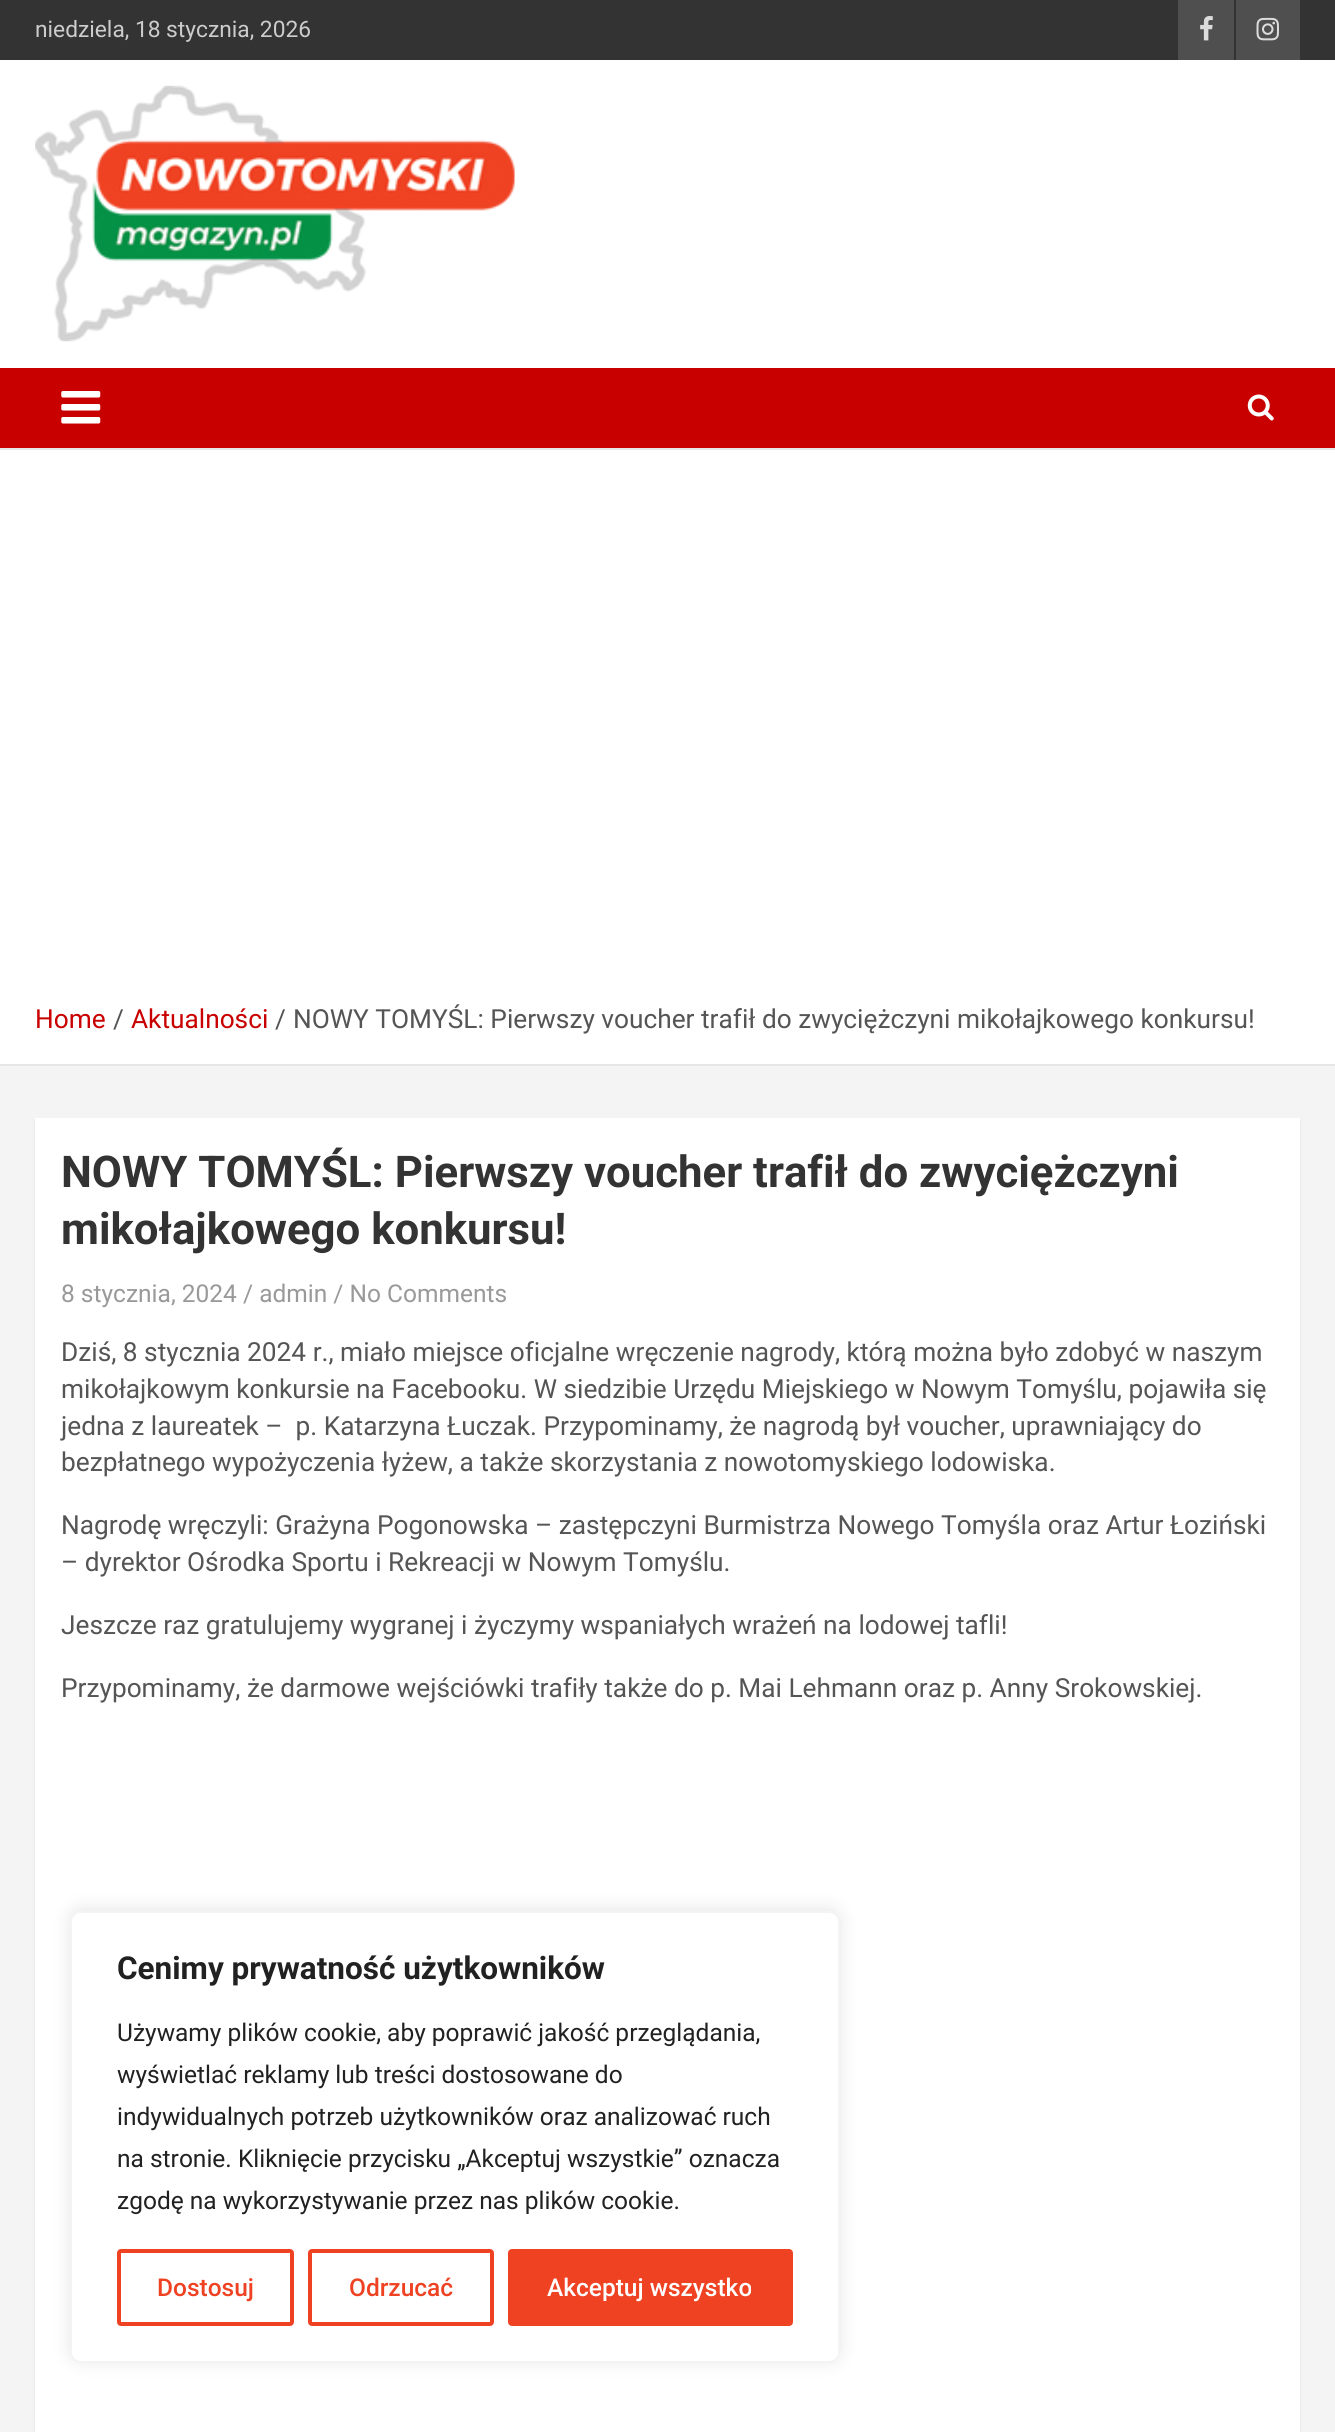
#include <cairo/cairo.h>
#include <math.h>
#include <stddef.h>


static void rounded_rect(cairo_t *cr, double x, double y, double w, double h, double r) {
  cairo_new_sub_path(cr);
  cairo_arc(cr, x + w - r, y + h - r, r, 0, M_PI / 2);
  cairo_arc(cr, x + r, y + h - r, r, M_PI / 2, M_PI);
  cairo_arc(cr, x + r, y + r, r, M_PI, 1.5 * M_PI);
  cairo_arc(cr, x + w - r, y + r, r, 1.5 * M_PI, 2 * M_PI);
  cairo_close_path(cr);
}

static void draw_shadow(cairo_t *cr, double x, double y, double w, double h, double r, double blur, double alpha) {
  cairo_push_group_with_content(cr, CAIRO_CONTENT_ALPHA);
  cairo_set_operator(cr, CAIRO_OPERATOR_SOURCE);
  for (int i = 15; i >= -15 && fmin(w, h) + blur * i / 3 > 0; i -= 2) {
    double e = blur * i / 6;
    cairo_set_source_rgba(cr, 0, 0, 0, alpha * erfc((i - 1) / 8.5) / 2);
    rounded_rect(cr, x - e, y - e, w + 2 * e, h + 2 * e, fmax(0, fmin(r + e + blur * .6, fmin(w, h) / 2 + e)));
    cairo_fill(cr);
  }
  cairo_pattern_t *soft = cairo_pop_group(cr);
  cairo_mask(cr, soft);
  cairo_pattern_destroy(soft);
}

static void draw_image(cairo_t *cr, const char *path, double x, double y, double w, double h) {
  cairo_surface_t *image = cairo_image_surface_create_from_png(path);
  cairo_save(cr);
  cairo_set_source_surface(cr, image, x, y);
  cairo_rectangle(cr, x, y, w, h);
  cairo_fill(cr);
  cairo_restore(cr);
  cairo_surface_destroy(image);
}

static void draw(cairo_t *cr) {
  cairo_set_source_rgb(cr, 244 / 255.0, 244 / 255.0, 244 / 255.0);
  cairo_paint(cr);
  cairo_set_source_rgb(cr, 51 / 255.0, 51 / 255.0, 51 / 255.0);
  cairo_rectangle(cr, 0, 0, 1335, 60);
  cairo_fill(cr);
  cairo_set_source_rgb(cr, 79 / 255.0, 79 / 255.0, 79 / 255.0);
  cairo_rectangle(cr, 1178, 0, 56, 60);
  cairo_fill(cr);
  draw_image(cr, "images/1.png", 1200, 16, 13, 25);
  cairo_rectangle(cr, 1236, 0, 64, 60);
  cairo_fill(cr);
  draw_image(cr, "images/2.png", 1256, 17, 23, 24);
  cairo_set_source_rgb(cr, 1, 1, 1);
  cairo_rectangle(cr, 0, 60, 1335, 308);
  cairo_fill(cr);
  draw_image(cr, "images/3.png", 35, 85, 480, 257);
  cairo_set_source_rgb(cr, 200 / 255.0, 0, 0);
  cairo_rectangle(cr, 0, 368, 1335, 80);
  cairo_fill(cr);
  draw_image(cr, "images/4.png", 61, 391, 40, 33);
  draw_image(cr, "images/5.png", 1247, 394, 27, 27);
  cairo_set_source_rgb(cr, 230 / 255.0, 230 / 255.0, 230 / 255.0);
  cairo_rectangle(cr, 0, 448, 1335, 2);
  cairo_fill(cr);
  cairo_set_source_rgb(cr, 1, 1, 1);
  cairo_rectangle(cr, 0, 450, 1335, 614);
  cairo_fill(cr);
  cairo_set_source_rgb(cr, 230 / 255.0, 230 / 255.0, 230 / 255.0);
  cairo_rectangle(cr, 0, 1064, 1335, 2);
  cairo_fill(cr);
  cairo_set_source_rgb(cr, 0, 0, 0);
  draw_shadow(cr, 35, 1120, 1265, 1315, 0, 1, 0.1);
  cairo_set_source_rgb(cr, 1, 1, 1);
  cairo_rectangle(cr, 35, 1118, 1265, 1314);
  cairo_fill(cr);
  cairo_set_source_rgb(cr, 172 / 255.0, 171 / 255.0, 171 / 255.0);
  draw_shadow(cr, 70, 1909, 770, 452, 11, 9, 0.3);
  cairo_set_source_rgb(cr, 1, 1, 1);
  rounded_rect(cr, 71, 1912, 768, 450, 10);
  cairo_fill_preserve(cr);
  cairo_set_source_rgb(cr, 244 / 255.0, 244 / 255.0, 244 / 255.0);
  cairo_stroke(cr);
  rounded_rect(cr, 119, 2251, 173, 73, 2);
  cairo_set_source_rgb(cr, 239 / 255.0, 66 / 255.0, 35 / 255.0);
  cairo_set_line_width(cr, 4);
  cairo_stroke(cr);
  rounded_rect(cr, 310, 2251, 182, 73, 2);
  cairo_stroke(cr);
  rounded_rect(cr, 510, 2251, 281, 73, 2);
  cairo_fill_preserve(cr);
  cairo_stroke(cr);
  cairo_select_font_face(cr, "Roboto", CAIRO_FONT_SLANT_NORMAL, CAIRO_FONT_WEIGHT_NORMAL);
  cairo_set_font_size(cr, 22.75);
  cairo_set_source_rgb(cr, 204 / 255.0, 204 / 255.0, 204 / 255.0);
  cairo_move_to(cr, 35, 37);
  cairo_show_text(cr, "niedziela, 18 stycznia, 2026");
  cairo_set_font_size(cr, 26.25);
  cairo_set_source_rgb(cr, 200 / 255.0, 0, 0);
  cairo_move_to(cr, 35, 1028);
  cairo_show_text(cr, "Home");
  cairo_set_source_rgb(cr, 85 / 255.0, 85 / 255.0, 85 / 255.0);
  cairo_move_to(cr, 113, 1028);
  cairo_show_text(cr, "/");
  cairo_set_source_rgb(cr, 200 / 255.0, 0, 0);
  cairo_move_to(cr, 131, 1028);
  cairo_show_text(cr, "Aktualności");
  cairo_set_source_rgb(cr, 85 / 255.0, 85 / 255.0, 85 / 255.0);
  cairo_move_to(cr, 275, 1028);
  cairo_show_text(cr, "/");
  cairo_move_to(cr, 293, 1028);
  cairo_show_text(cr, "NOWY TOMYŚL: Pierwszy voucher trafił do zwyciężczyni mikołajkowego konkursu!");
  cairo_select_font_face(cr, "Roboto", CAIRO_FONT_SLANT_NORMAL, CAIRO_FONT_WEIGHT_BOLD);
  cairo_set_font_size(cr, 43.75);
  cairo_set_source_rgb(cr, 51 / 255.0, 51 / 255.0, 51 / 255.0);
  cairo_move_to(cr, 61, 1187);
  cairo_show_text(cr, "NOWY TOMYŚL: Pierwszy voucher trafił do zwyciężczyni");
  cairo_move_to(cr, 61, 1244);
  cairo_show_text(cr, "mikołajkowego konkursu!");
  cairo_select_font_face(cr, "Roboto", CAIRO_FONT_SLANT_NORMAL, CAIRO_FONT_WEIGHT_NORMAL);
  cairo_set_font_size(cr, 24.5);
  cairo_set_source_rgb(cr, 153 / 255.0, 153 / 255.0, 153 / 255.0);
  cairo_move_to(cr, 61, 1302);
  cairo_show_text(cr, "8 stycznia, 2024 / admin / No Comments");
  cairo_set_font_size(cr, 26.25);
  cairo_set_source_rgb(cr, 85 / 255.0, 85 / 255.0, 85 / 255.0);
  cairo_move_to(cr, 61, 1361);
  cairo_show_text(cr, "Dziś, 8 stycznia 2024 r., miało miejsce oficjalne wręczenie nagrody, którą można było zdobyć w naszym");
  cairo_move_to(cr, 61, 1398);
  cairo_show_text(cr, "mikołajkowym konkursie na Facebooku. W siedzibie Urzędu Miejskiego w Nowym Tomyślu, pojawiła się");
  cairo_move_to(cr, 61, 1435);
  cairo_show_text(cr, "jedna z laureatek –  p. Katarzyna Łuczak. Przypominamy, że nagrodą był voucher, uprawniający do");
  cairo_move_to(cr, 61, 1471);
  cairo_show_text(cr, "bezpłatnego wypożyczenia łyżew, a także skorzystania z nowotomyskiego lodowiska.");
  cairo_move_to(cr, 61, 1534);
  cairo_show_text(cr, "Nagrodę wręczyli: Grażyna Pogonowska – zastępczyni Burmistrza Nowego Tomyśla oraz Artur Łoziński");
  cairo_move_to(cr, 61, 1571);
  cairo_show_text(cr, "– dyrektor Ośrodka Sportu i Rekreacji w Nowym Tomyślu.");
  cairo_move_to(cr, 61, 1634);
  cairo_show_text(cr, "Jeszcze raz gratulujemy wygranej i życzymy wspaniałych wrażeń na lodowej tafli!");
  cairo_move_to(cr, 61, 1697);
  cairo_show_text(cr, "Przypominamy, że darmowe wejściówki trafiły także do p. Mai Lehmann oraz p. Anny Srokowskiej.");
  cairo_select_font_face(cr, "Roboto", CAIRO_FONT_SLANT_NORMAL, CAIRO_FONT_WEIGHT_BOLD);
  cairo_set_font_size(cr, 31.5);
  cairo_set_source_rgb(cr, 33 / 255.0, 33 / 255.0, 33 / 255.0);
  cairo_move_to(cr, 117, 1979);
  cairo_show_text(cr, "Cenimy prywatność użytkowników");
  cairo_select_font_face(cr, "Roboto", CAIRO_FONT_SLANT_NORMAL, CAIRO_FONT_WEIGHT_NORMAL);
  cairo_set_font_size(cr, 24.5);
  cairo_move_to(cr, 117, 2041);
  cairo_show_text(cr, "Używamy plików cookie, aby poprawić jakość przeglądania,");
  cairo_move_to(cr, 117, 2083);
  cairo_show_text(cr, "wyświetlać reklamy lub treści dostosowane do");
  cairo_move_to(cr, 117, 2125);
  cairo_show_text(cr, "indywidualnych potrzeb użytkowników oraz analizować ruch");
  cairo_move_to(cr, 117, 2167);
  cairo_show_text(cr, "na stronie. Kliknięcie przycisku „Akceptuj wszystkie” oznacza");
  cairo_move_to(cr, 117, 2209);
  cairo_show_text(cr, "zgodę na wykorzystywanie przez nas plików cookie.");
  cairo_select_font_face(cr, "Roboto Medium", CAIRO_FONT_SLANT_NORMAL, CAIRO_FONT_WEIGHT_NORMAL);
  cairo_set_source_rgb(cr, 239 / 255.0, 66 / 255.0, 35 / 255.0);
  cairo_move_to(cr, 157, 2296);
  cairo_show_text(cr, "Dostosuj");
  cairo_move_to(cr, 349, 2296);
  cairo_show_text(cr, "Odrzucać");
  cairo_set_source_rgb(cr, 1, 1, 1);
  cairo_move_to(cr, 547, 2296);
  cairo_show_text(cr, "Akceptuj wszystko");
}

int main(void) {
  cairo_surface_t *surface = cairo_image_surface_create(CAIRO_FORMAT_RGB24, 1335, 2432);
  cairo_t *cr = cairo_create(surface);
  cairo_font_options_t *options = cairo_font_options_create();
  cairo_font_options_set_hint_metrics(options, CAIRO_HINT_METRICS_OFF);
  cairo_font_options_set_hint_style(options, CAIRO_HINT_STYLE_NONE);
  cairo_set_font_options(cr, options);
  cairo_set_miter_limit(cr, 4);
  draw(cr);
  cairo_surface_write_to_png(surface, "out.png");
  cairo_font_options_destroy(options);
  cairo_destroy(cr);
  cairo_surface_destroy(surface);
  return 0;
}
